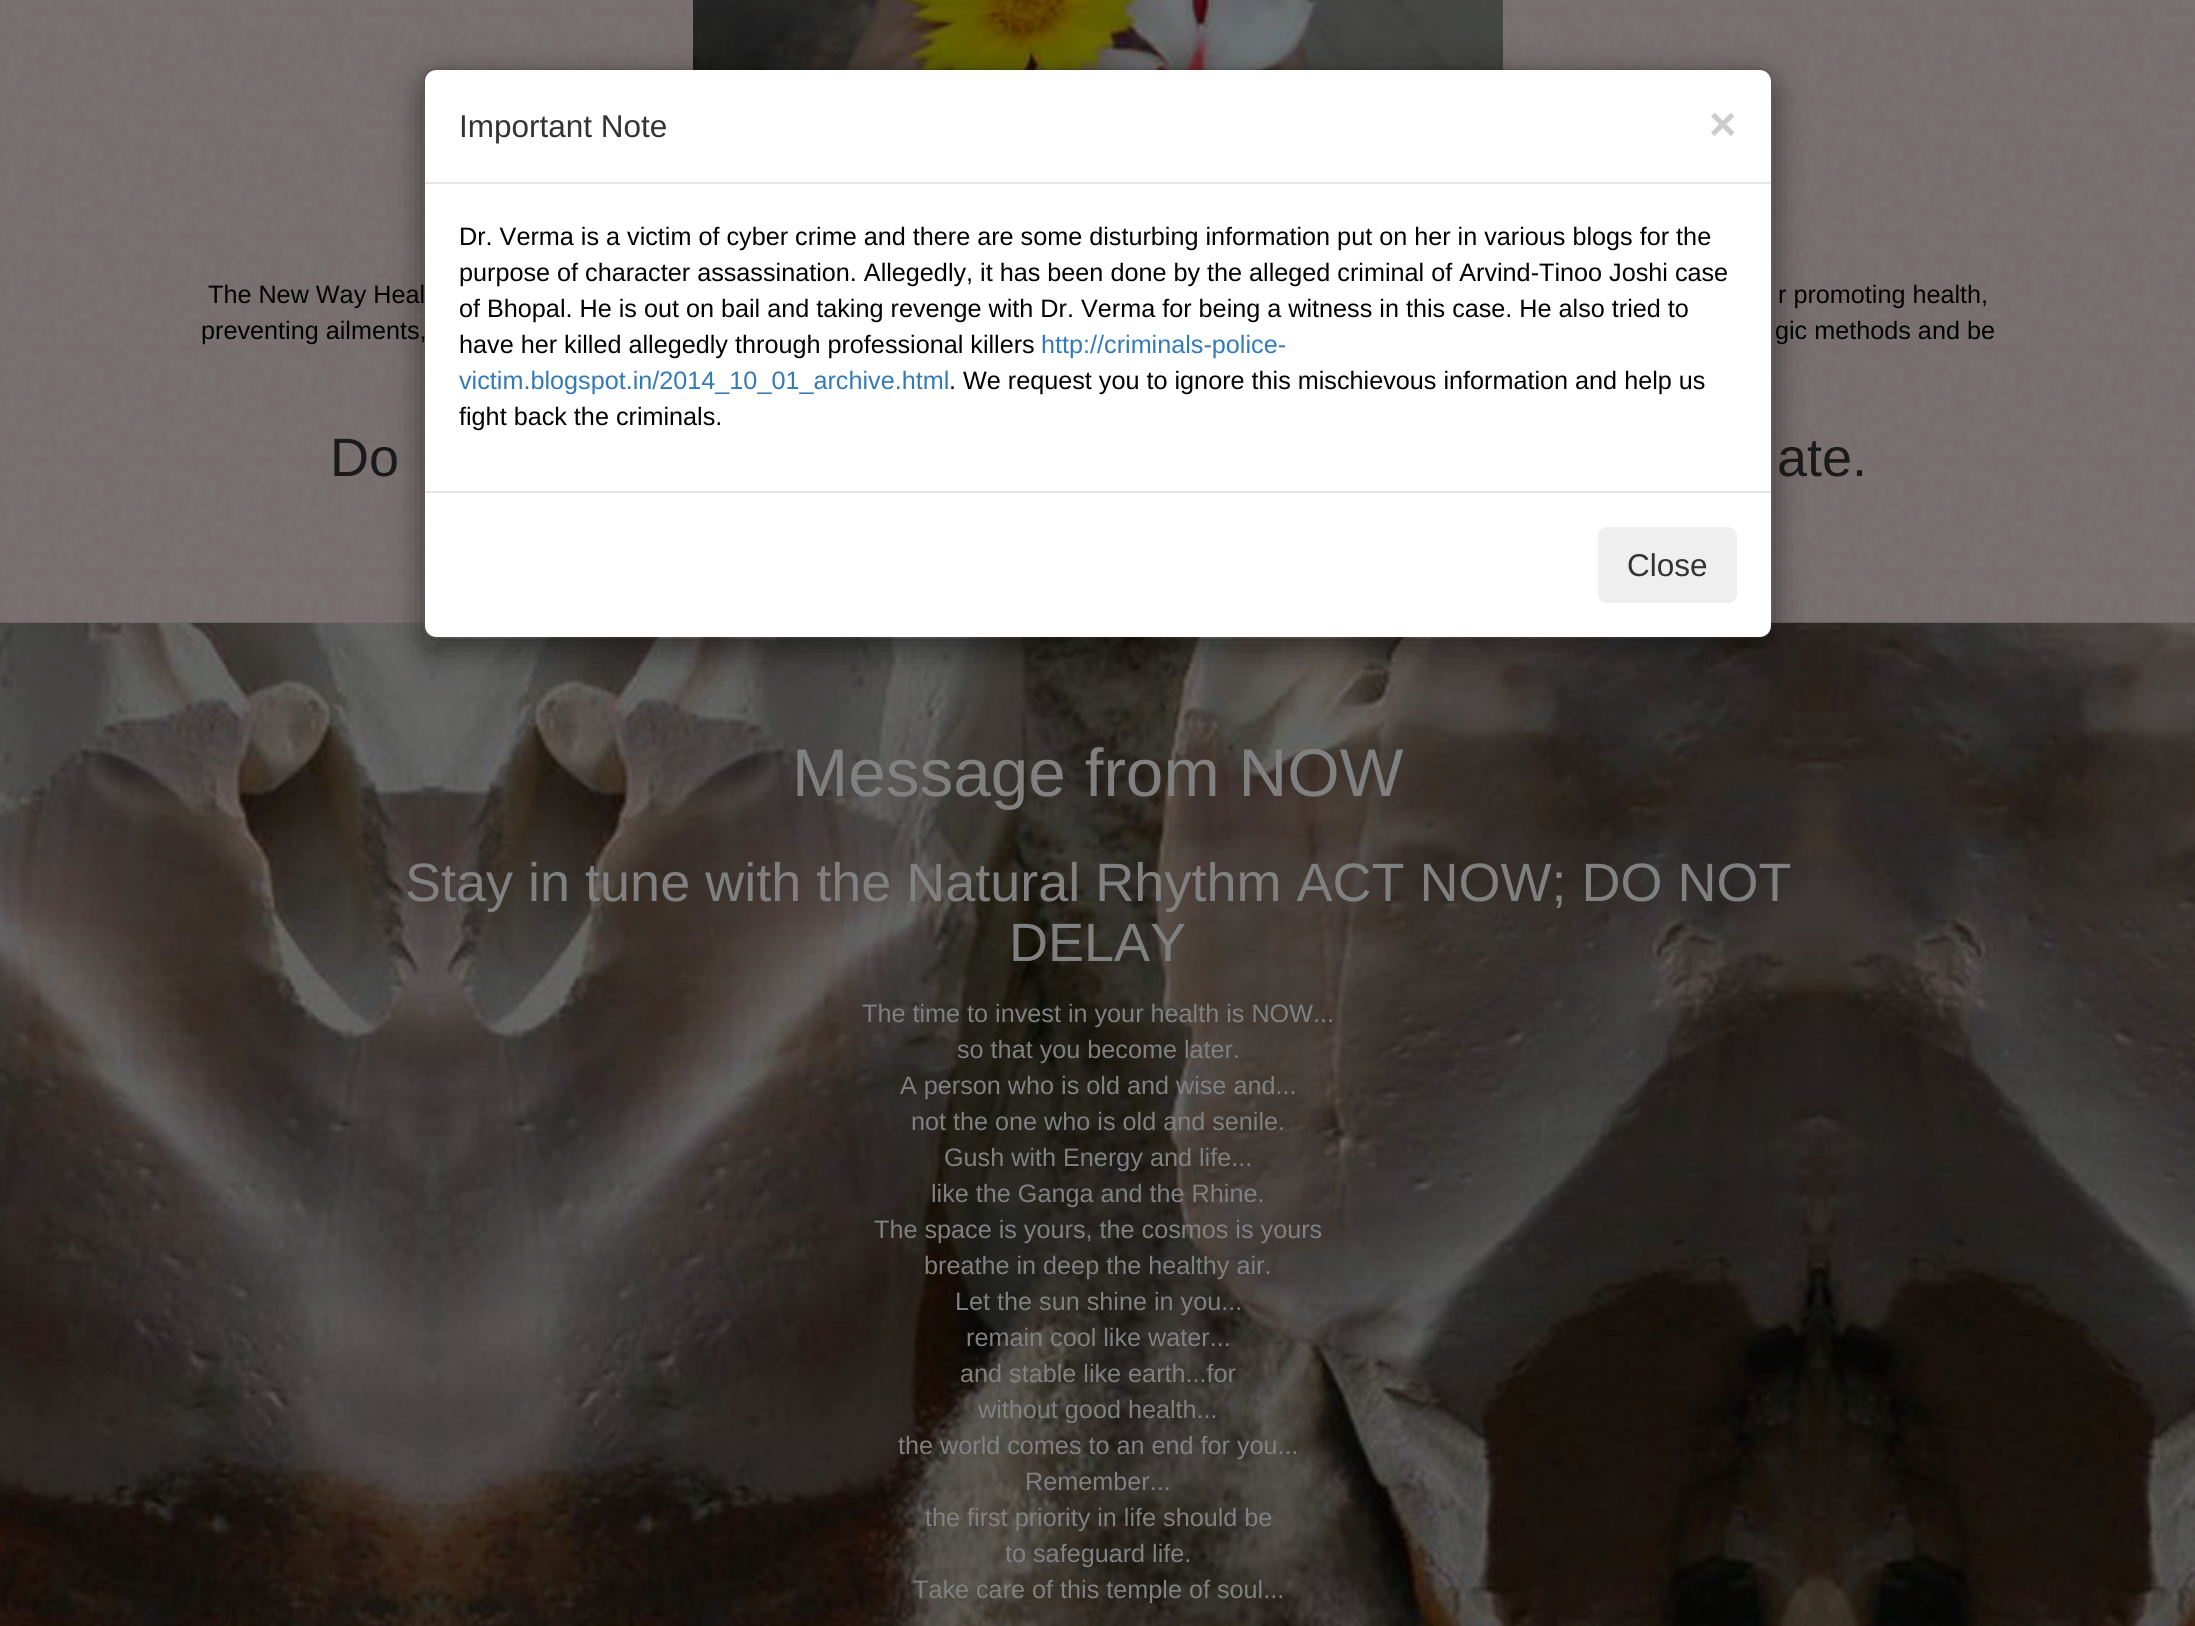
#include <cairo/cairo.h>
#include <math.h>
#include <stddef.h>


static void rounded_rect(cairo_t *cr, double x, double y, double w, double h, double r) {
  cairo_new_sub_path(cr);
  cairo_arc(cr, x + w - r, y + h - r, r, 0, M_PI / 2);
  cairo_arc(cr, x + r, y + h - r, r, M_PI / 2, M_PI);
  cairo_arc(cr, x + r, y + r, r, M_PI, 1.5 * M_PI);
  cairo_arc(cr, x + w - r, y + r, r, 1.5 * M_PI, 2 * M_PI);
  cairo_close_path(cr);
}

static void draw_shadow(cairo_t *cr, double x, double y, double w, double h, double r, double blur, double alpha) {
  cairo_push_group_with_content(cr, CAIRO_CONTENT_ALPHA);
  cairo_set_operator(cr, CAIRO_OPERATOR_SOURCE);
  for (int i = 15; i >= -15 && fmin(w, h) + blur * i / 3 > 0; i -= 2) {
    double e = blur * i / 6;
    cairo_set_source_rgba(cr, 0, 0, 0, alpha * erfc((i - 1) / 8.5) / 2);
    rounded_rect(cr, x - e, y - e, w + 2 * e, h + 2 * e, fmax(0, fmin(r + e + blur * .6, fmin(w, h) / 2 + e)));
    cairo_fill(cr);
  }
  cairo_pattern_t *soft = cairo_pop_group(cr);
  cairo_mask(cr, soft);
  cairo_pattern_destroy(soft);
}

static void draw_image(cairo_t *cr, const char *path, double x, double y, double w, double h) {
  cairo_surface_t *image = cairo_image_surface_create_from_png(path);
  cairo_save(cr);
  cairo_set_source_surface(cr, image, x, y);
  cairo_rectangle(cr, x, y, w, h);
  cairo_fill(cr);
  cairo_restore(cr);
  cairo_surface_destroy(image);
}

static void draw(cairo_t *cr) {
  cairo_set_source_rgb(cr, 1, 1, 1);
  cairo_paint(cr);
  draw_image(cr, "images/1.png", 0, 0, 2195, 623);
  draw_image(cr, "images/2.png", 693, 0, 810, 70);
  draw_image(cr, "images/3.png", 0, 622, 2195, 1004);
  cairo_save(cr);
  cairo_set_fill_rule(cr, CAIRO_FILL_RULE_EVEN_ODD);
  cairo_new_path(cr);
  cairo_move_to(cr, 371, 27);
  cairo_line_to(cr, 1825, 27);
  cairo_line_to(cr, 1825, 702);
  cairo_line_to(cr, 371, 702);
  cairo_close_path(cr);
  cairo_move_to(cr, 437, 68);
  cairo_line_to(cr, 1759, 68);
  cairo_curve_to(cr, 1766.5, 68, 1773, 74.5, 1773, 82);
  cairo_line_to(cr, 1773, 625);
  cairo_curve_to(cr, 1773, 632.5, 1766.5, 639, 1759, 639);
  cairo_line_to(cr, 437, 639);
  cairo_curve_to(cr, 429.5, 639, 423, 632.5, 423, 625);
  cairo_line_to(cr, 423, 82);
  cairo_curve_to(cr, 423, 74.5, 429.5, 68, 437, 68);
  cairo_close_path(cr);
  cairo_clip(cr);
  cairo_set_source_rgb(cr, 0, 0, 0);
  draw_shadow(cr, 423, 79, 1350, 571, 14, 17, 0.5);
  cairo_restore(cr);
  cairo_set_source_rgb(cr, 1, 1, 1);
  rounded_rect(cr, 425, 70, 1346, 567, 11);
  cairo_fill(cr);
  cairo_select_font_face(cr, "Liberation Sans", CAIRO_FONT_SLANT_NORMAL, CAIRO_FONT_WEIGHT_NORMAL);
  cairo_set_font_size(cr, 25.2);
  cairo_set_source_rgb(cr, 0, 0, 0);
  cairo_move_to(cr, 208, 303);
  cairo_show_text(cr, "The New Way Heal");
  cairo_move_to(cr, 1778, 303);
  cairo_show_text(cr, "r promoting health,");
  cairo_move_to(cr, 201, 339);
  cairo_show_text(cr, "preventing ailments,");
  rounded_rect(cr, 424, 69, 1348, 569, 13);
  cairo_set_source_rgba(cr, 0, 0, 0, 0.2);
  cairo_stroke(cr);
  cairo_set_source_rgb(cr, 0, 0, 0);
  cairo_move_to(cr, 459, 425);
  cairo_show_text(cr, "fight back the criminals.");
  cairo_move_to(cr, 949, 389);
  cairo_show_text(cr, ". We request you to ignore this mischievous information and help us");
  cairo_set_source_rgb(cr, 51 / 255.0, 122 / 255.0, 183 / 255.0);
  cairo_move_to(cr, 459, 389);
  cairo_show_text(cr, "victim.blogspot.in/2014_10_01_archive.html");
  cairo_move_to(cr, 1041, 353);
  cairo_show_text(cr, "http://criminals-police-");
  cairo_set_source_rgb(cr, 0, 0, 0);
  cairo_move_to(cr, 459, 353);
  cairo_show_text(cr, "have her killed allegedly through professional killers");
  cairo_move_to(cr, 459, 317);
  cairo_show_text(cr, "of Bhopal. He is out on bail and taking revenge with Dr. Verma for being a witness in this case. He also tried to");
  cairo_move_to(cr, 459, 281);
  cairo_show_text(cr, "purpose of character assassination. Allegedly, it has been done by the alleged criminal of Arvind-Tinoo Joshi case");
  cairo_move_to(cr, 459, 245);
  cairo_show_text(cr, "Dr. Verma is a victim of cyber crime and there are some disturbing information put on her in various blogs for the");
  cairo_select_font_face(cr, "Liberation Sans", CAIRO_FONT_SLANT_NORMAL, CAIRO_FONT_WEIGHT_BOLD);
  cairo_set_font_size(cr, 47);
  cairo_set_source_rgb(cr, 204 / 255.0, 204 / 255.0, 204 / 255.0);
  cairo_move_to(cr, 1709, 140);
  cairo_show_text(cr, "×");
  cairo_set_source_rgb(cr, 239 / 255.0, 239 / 255.0, 239 / 255.0);
  rounded_rect(cr, 1598, 527, 139, 76, 9);
  cairo_fill(cr);
  cairo_select_font_face(cr, "Liberation Sans", CAIRO_FONT_SLANT_NORMAL, CAIRO_FONT_WEIGHT_NORMAL);
  cairo_set_font_size(cr, 31.5);
  cairo_set_source_rgb(cr, 51 / 255.0, 51 / 255.0, 51 / 255.0);
  cairo_move_to(cr, 1627, 576);
  cairo_show_text(cr, "Close");
  cairo_move_to(cr, 459, 137);
  cairo_show_text(cr, "Important Note");
  cairo_set_source_rgb(cr, 229 / 255.0, 229 / 255.0, 229 / 255.0);
  cairo_rectangle(cr, 425, 491, 1346, 2);
  cairo_fill(cr);
  cairo_rectangle(cr, 425, 182, 1346, 2);
  cairo_fill(cr);
  cairo_set_font_size(cr, 25.2);
  cairo_set_source_rgb(cr, 0, 0, 0);
  cairo_move_to(cr, 1775, 339);
  cairo_show_text(cr, "gic methods and be");
  cairo_set_font_size(cr, 54);
  cairo_set_source_rgb(cr, 26 / 255.0, 26 / 255.0, 26 / 255.0);
  cairo_move_to(cr, 330, 476);
  cairo_show_text(cr, "Do");
  cairo_move_to(cr, 1777, 476);
  cairo_show_text(cr, "ate.");
  cairo_set_font_size(cr, 67.5);
  cairo_set_source_rgb(cr, 128 / 255.0, 128 / 255.0, 128 / 255.0);
  cairo_move_to(cr, 792, 796);
  cairo_show_text(cr, "Message from NOW");
  cairo_set_font_size(cr, 54);
  cairo_move_to(cr, 405, 901);
  cairo_show_text(cr, "Stay in tune with the Natural Rhythm ACT NOW; DO NOT");
  cairo_move_to(cr, 1009, 961);
  cairo_show_text(cr, "DELAY");
  cairo_set_font_size(cr, 25.2);
  cairo_move_to(cr, 862, 1022);
  cairo_show_text(cr, "The time to invest in your health is NOW...");
  cairo_move_to(cr, 957, 1058);
  cairo_show_text(cr, "so that you become later.");
  cairo_move_to(cr, 900, 1094);
  cairo_show_text(cr, "A person who is old and wise and...");
  cairo_move_to(cr, 911, 1130);
  cairo_show_text(cr, "not the one who is old and senile.");
  cairo_move_to(cr, 944, 1166);
  cairo_show_text(cr, "Gush with Energy and life...");
  cairo_move_to(cr, 931, 1202);
  cairo_show_text(cr, "like the Ganga and the Rhine.");
  cairo_move_to(cr, 874, 1238);
  cairo_show_text(cr, "The space is yours, the cosmos is yours");
  cairo_move_to(cr, 924, 1274);
  cairo_show_text(cr, "breathe in deep the healthy air.");
  cairo_move_to(cr, 955, 1310);
  cairo_show_text(cr, "Let the sun shine in you...");
  cairo_move_to(cr, 966, 1346);
  cairo_show_text(cr, "remain cool like water...");
  cairo_move_to(cr, 960, 1382);
  cairo_show_text(cr, "and stable like earth...for");
  cairo_move_to(cr, 978, 1418);
  cairo_show_text(cr, "without good health...");
  cairo_move_to(cr, 898, 1454);
  cairo_show_text(cr, "the world comes to an end for you...");
  cairo_move_to(cr, 1025, 1490);
  cairo_show_text(cr, "Remember...");
  cairo_move_to(cr, 925, 1526);
  cairo_show_text(cr, "the first priority in life should be");
  cairo_move_to(cr, 1005, 1562);
  cairo_show_text(cr, "to safeguard life.");
  cairo_move_to(cr, 913, 1598);
  cairo_show_text(cr, "Take care of this temple of soul...");
}

int main(void) {
  cairo_surface_t *surface = cairo_image_surface_create(CAIRO_FORMAT_RGB24, 2195, 1626);
  cairo_t *cr = cairo_create(surface);
  cairo_font_options_t *options = cairo_font_options_create();
  cairo_font_options_set_hint_metrics(options, CAIRO_HINT_METRICS_OFF);
  cairo_font_options_set_hint_style(options, CAIRO_HINT_STYLE_NONE);
  cairo_set_font_options(cr, options);
  cairo_set_miter_limit(cr, 4);
  draw(cr);
  cairo_surface_write_to_png(surface, "out.png");
  cairo_font_options_destroy(options);
  cairo_destroy(cr);
  cairo_surface_destroy(surface);
  return 0;
}
